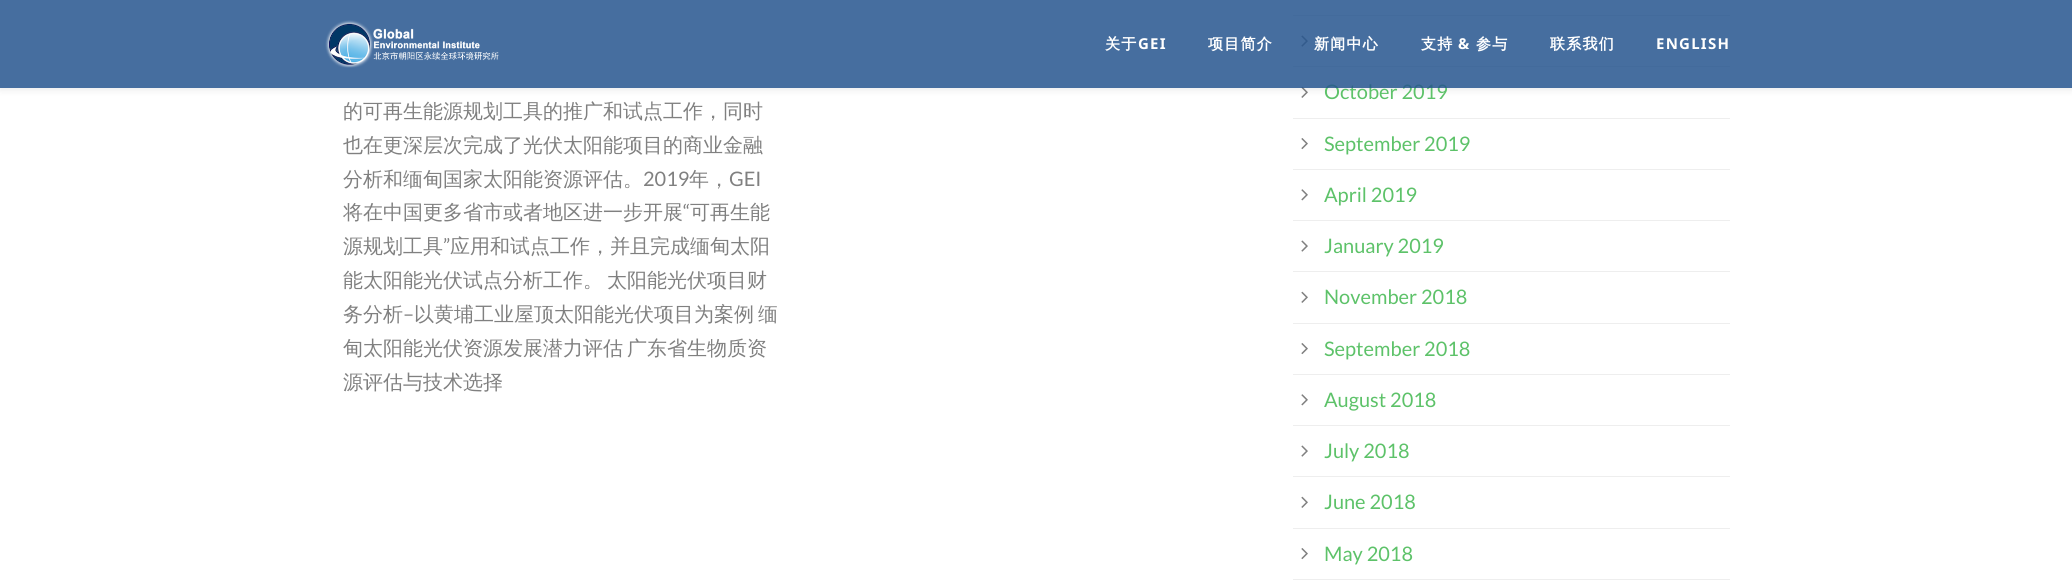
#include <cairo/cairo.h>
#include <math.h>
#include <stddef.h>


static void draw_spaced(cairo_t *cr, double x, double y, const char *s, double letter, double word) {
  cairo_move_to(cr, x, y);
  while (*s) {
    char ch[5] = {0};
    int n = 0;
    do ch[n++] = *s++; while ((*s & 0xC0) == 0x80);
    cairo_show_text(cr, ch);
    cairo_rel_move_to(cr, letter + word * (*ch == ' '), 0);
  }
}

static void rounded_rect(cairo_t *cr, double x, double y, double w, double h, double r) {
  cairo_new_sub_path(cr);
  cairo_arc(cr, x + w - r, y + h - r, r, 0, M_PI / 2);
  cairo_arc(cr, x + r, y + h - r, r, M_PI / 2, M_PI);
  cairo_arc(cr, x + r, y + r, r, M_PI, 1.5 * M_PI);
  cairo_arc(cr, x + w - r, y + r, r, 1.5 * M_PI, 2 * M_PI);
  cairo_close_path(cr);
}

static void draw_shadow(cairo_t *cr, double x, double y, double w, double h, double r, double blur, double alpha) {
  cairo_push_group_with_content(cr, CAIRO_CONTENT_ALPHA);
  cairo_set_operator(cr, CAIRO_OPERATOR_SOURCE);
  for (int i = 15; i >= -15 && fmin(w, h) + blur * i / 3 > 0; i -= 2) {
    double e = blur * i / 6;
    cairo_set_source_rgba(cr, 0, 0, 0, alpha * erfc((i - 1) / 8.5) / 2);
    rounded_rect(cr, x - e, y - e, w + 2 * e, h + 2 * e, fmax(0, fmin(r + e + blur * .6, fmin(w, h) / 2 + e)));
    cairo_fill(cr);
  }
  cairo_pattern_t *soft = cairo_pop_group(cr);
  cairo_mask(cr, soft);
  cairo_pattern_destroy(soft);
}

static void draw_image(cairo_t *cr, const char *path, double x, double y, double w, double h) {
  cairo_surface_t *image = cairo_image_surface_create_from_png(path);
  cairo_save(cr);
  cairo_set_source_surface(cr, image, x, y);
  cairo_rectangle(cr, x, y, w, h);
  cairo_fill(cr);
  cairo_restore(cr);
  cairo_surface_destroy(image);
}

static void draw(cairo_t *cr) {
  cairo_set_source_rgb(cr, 1, 1, 1);
  cairo_paint(cr);
  cairo_set_source_rgb(cr, 238 / 255.0, 238 / 255.0, 238 / 255.0);
  cairo_rectangle(cr, 1293, 15, 437, 1);
  cairo_fill(cr);
  cairo_rectangle(cr, 1293, 66, 437, 1);
  cairo_fill(cr);
  draw_image(cr, "images/2.png", 1301, 35, 7, 12);
  draw_image(cr, "images/3.png", 1301, 86, 7, 12);
  cairo_save(cr);
  cairo_set_fill_rule(cr, CAIRO_FILL_RULE_EVEN_ODD);
  cairo_new_path(cr);
  cairo_move_to(cr, 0, 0);
  cairo_line_to(cr, 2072, 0);
  cairo_line_to(cr, 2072, 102);
  cairo_line_to(cr, 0, 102);
  cairo_close_path(cr);
  cairo_move_to(cr, 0, 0);
  cairo_line_to(cr, 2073, 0);
  cairo_line_to(cr, 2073, 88);
  cairo_line_to(cr, 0, 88);
  cairo_close_path(cr);
  cairo_clip(cr);
  cairo_set_source_rgb(cr, 0, 0, 0);
  draw_shadow(cr, 0, 1, 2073, 88, 0, 4, 0.1);
  cairo_restore(cr);
  cairo_rectangle(cr, 1293, 118, 437, 1);
  cairo_fill(cr);
  cairo_rectangle(cr, 1293, 169, 437, 1);
  cairo_fill(cr);
  draw_image(cr, "images/4.png", 1301, 138, 7, 12);
  cairo_rectangle(cr, 1293, 220, 437, 1);
  cairo_fill(cr);
  draw_image(cr, "images/5.png", 1301, 189, 7, 12);
  cairo_rectangle(cr, 1293, 271, 437, 1);
  cairo_fill(cr);
  draw_image(cr, "images/2.png", 1301, 240, 7, 12);
  cairo_rectangle(cr, 1293, 323, 437, 1);
  cairo_fill(cr);
  draw_image(cr, "images/3.png", 1301, 291, 7, 12);
  cairo_rectangle(cr, 1293, 374, 437, 1);
  cairo_fill(cr);
  draw_image(cr, "images/4.png", 1301, 343, 7, 12);
  cairo_rectangle(cr, 1293, 425, 437, 1);
  cairo_fill(cr);
  draw_image(cr, "images/5.png", 1301, 394, 7, 12);
  cairo_rectangle(cr, 1293, 476, 437, 1);
  cairo_fill(cr);
  draw_image(cr, "images/2.png", 1301, 445, 7, 12);
  cairo_rectangle(cr, 1293, 528, 437, 1);
  cairo_fill(cr);
  draw_image(cr, "images/3.png", 1301, 496, 7, 12);
  cairo_rectangle(cr, 1293, 579, 437, 1);
  cairo_fill(cr);
  draw_image(cr, "images/4.png", 1301, 548, 7, 12);
  cairo_select_font_face(cr, "WenQuanYi Zen Hei Medium", CAIRO_FONT_SLANT_NORMAL, CAIRO_FONT_WEIGHT_NORMAL);
  cairo_set_font_size(cr, 20);
  cairo_set_source_rgb(cr, 128 / 255.0, 128 / 255.0, 128 / 255.0);
  cairo_move_to(cr, 343, 118);
  cairo_show_text(cr, "的可再生能源规划工具的推广和试点工作，同时");
  cairo_move_to(cr, 343, 152);
  cairo_show_text(cr, "也在更深层次完成了光伏太阳能项目的商业金融");
  cairo_move_to(cr, 343, 186);
  cairo_show_text(cr, "分析和缅甸国家太阳能资源评估。");
  cairo_select_font_face(cr, "Lato", CAIRO_FONT_SLANT_NORMAL, CAIRO_FONT_WEIGHT_NORMAL);
  cairo_move_to(cr, 643, 186);
  cairo_show_text(cr, "2019");
  cairo_select_font_face(cr, "WenQuanYi Zen Hei Medium", CAIRO_FONT_SLANT_NORMAL, CAIRO_FONT_WEIGHT_NORMAL);
  cairo_move_to(cr, 689, 186);
  cairo_show_text(cr, "年，");
  cairo_select_font_face(cr, "Lato", CAIRO_FONT_SLANT_NORMAL, CAIRO_FONT_WEIGHT_NORMAL);
  cairo_move_to(cr, 729, 186);
  cairo_show_text(cr, "GEI");
  cairo_select_font_face(cr, "WenQuanYi Zen Hei Medium", CAIRO_FONT_SLANT_NORMAL, CAIRO_FONT_WEIGHT_NORMAL);
  cairo_move_to(cr, 343, 219);
  cairo_show_text(cr, "将在中国更多省市或者地区进一步开展");
  cairo_select_font_face(cr, "Lato", CAIRO_FONT_SLANT_NORMAL, CAIRO_FONT_WEIGHT_NORMAL);
  cairo_move_to(cr, 683, 219);
  cairo_show_text(cr, "“");
  cairo_select_font_face(cr, "WenQuanYi Zen Hei Medium", CAIRO_FONT_SLANT_NORMAL, CAIRO_FONT_WEIGHT_NORMAL);
  cairo_move_to(cr, 690, 219);
  cairo_show_text(cr, "可再生能");
  cairo_move_to(cr, 343, 253);
  cairo_show_text(cr, "源规划工具");
  cairo_select_font_face(cr, "Lato", CAIRO_FONT_SLANT_NORMAL, CAIRO_FONT_WEIGHT_NORMAL);
  cairo_move_to(cr, 443, 253);
  cairo_show_text(cr, "”");
  cairo_select_font_face(cr, "WenQuanYi Zen Hei Medium", CAIRO_FONT_SLANT_NORMAL, CAIRO_FONT_WEIGHT_NORMAL);
  cairo_move_to(cr, 450, 253);
  cairo_show_text(cr, "应用和试点工作，并且完成缅甸太阳");
  draw_spaced(cr, 343, 287, "能太阳能光伏试点分析工作。 太阳能光伏项目财", 0, -2);
  cairo_move_to(cr, 343, 321);
  cairo_show_text(cr, "务分析");
  cairo_select_font_face(cr, "Lato", CAIRO_FONT_SLANT_NORMAL, CAIRO_FONT_WEIGHT_NORMAL);
  cairo_move_to(cr, 403, 321);
  cairo_show_text(cr, "–");
  cairo_select_font_face(cr, "WenQuanYi Zen Hei Medium", CAIRO_FONT_SLANT_NORMAL, CAIRO_FONT_WEIGHT_NORMAL);
  draw_spaced(cr, 414, 321, "以黄埔工业屋顶太阳能光伏项目为案例 缅", 0, -2);
  draw_spaced(cr, 343, 355, "甸太阳能光伏资源发展潜力评估 广东省生物质资", 0, -2);
  cairo_move_to(cr, 343, 389);
  cairo_show_text(cr, "源评估与技术选择");
  cairo_select_font_face(cr, "Lato", CAIRO_FONT_SLANT_NORMAL, CAIRO_FONT_WEIGHT_NORMAL);
  cairo_set_source_rgb(cr, 93 / 255.0, 194 / 255.0, 105 / 255.0);
  cairo_move_to(cr, 1324, 99);
  cairo_show_text(cr, "October 2019");
  cairo_set_source_rgba(cr, 38 / 255.0, 85 / 255.0, 142 / 255.0, 0.85);
  cairo_rectangle(cr, 0, 0, 2072, 88);
  cairo_fill(cr);
  cairo_select_font_face(cr, "Noto Sans", CAIRO_FONT_SLANT_NORMAL, CAIRO_FONT_WEIGHT_BOLD);
  cairo_set_font_size(cr, 15);
  cairo_set_source_rgb(cr, 1, 1, 1);
  draw_spaced(cr, 1656, 49, "ENGLISH", 1.25, 0);
  cairo_select_font_face(cr, "WenQuanYi Zen Hei", CAIRO_FONT_SLANT_NORMAL, CAIRO_FONT_WEIGHT_BOLD);
  draw_spaced(cr, 1550, 49, "联系我们", 1.25, 0);
  draw_spaced(cr, 1476, 49, "参与", 1.25, 0);
  cairo_select_font_face(cr, "Noto Sans", CAIRO_FONT_SLANT_NORMAL, CAIRO_FONT_WEIGHT_BOLD);
  draw_spaced(cr, 1458, 49, "&", 1.25, 0);
  cairo_select_font_face(cr, "WenQuanYi Zen Hei", CAIRO_FONT_SLANT_NORMAL, CAIRO_FONT_WEIGHT_BOLD);
  draw_spaced(cr, 1421, 49, "支持", 1.25, 0);
  draw_spaced(cr, 1314, 49, "新闻中心", 1.25, 0);
  draw_spaced(cr, 1208, 49, "项目简介", 1.25, 0);
  cairo_select_font_face(cr, "Noto Sans", CAIRO_FONT_SLANT_NORMAL, CAIRO_FONT_WEIGHT_BOLD);
  draw_spaced(cr, 1138, 49, "GEI", 1.25, 0);
  cairo_select_font_face(cr, "WenQuanYi Zen Hei", CAIRO_FONT_SLANT_NORMAL, CAIRO_FONT_WEIGHT_BOLD);
  draw_spaced(cr, 1105, 49, "关于", 1.25, 0);
  draw_image(cr, "images/1.png", 325, 20, 174, 48);
  cairo_select_font_face(cr, "Lato", CAIRO_FONT_SLANT_NORMAL, CAIRO_FONT_WEIGHT_NORMAL);
  cairo_set_font_size(cr, 20);
  cairo_set_source_rgb(cr, 93 / 255.0, 194 / 255.0, 105 / 255.0);
  cairo_move_to(cr, 1324, 151);
  cairo_show_text(cr, "September 2019");
  cairo_move_to(cr, 1324, 202);
  cairo_show_text(cr, "April 2019");
  cairo_move_to(cr, 1324, 253);
  cairo_show_text(cr, "January 2019");
  cairo_move_to(cr, 1324, 304);
  cairo_show_text(cr, "November 2018");
  cairo_move_to(cr, 1324, 356);
  cairo_show_text(cr, "September 2018");
  cairo_move_to(cr, 1324, 407);
  cairo_show_text(cr, "August 2018");
  cairo_move_to(cr, 1324, 458);
  cairo_show_text(cr, "July 2018");
  cairo_move_to(cr, 1324, 509);
  cairo_show_text(cr, "June 2018");
  cairo_move_to(cr, 1324, 561);
  cairo_show_text(cr, "May 2018");
}

int main(void) {
  cairo_surface_t *surface = cairo_image_surface_create(CAIRO_FORMAT_RGB24, 2072, 588);
  cairo_t *cr = cairo_create(surface);
  cairo_font_options_t *options = cairo_font_options_create();
  cairo_font_options_set_hint_metrics(options, CAIRO_HINT_METRICS_OFF);
  cairo_font_options_set_hint_style(options, CAIRO_HINT_STYLE_NONE);
  cairo_set_font_options(cr, options);
  cairo_set_miter_limit(cr, 4);
  draw(cr);
  cairo_surface_write_to_png(surface, "out.png");
  cairo_font_options_destroy(options);
  cairo_destroy(cr);
  cairo_surface_destroy(surface);
  return 0;
}
